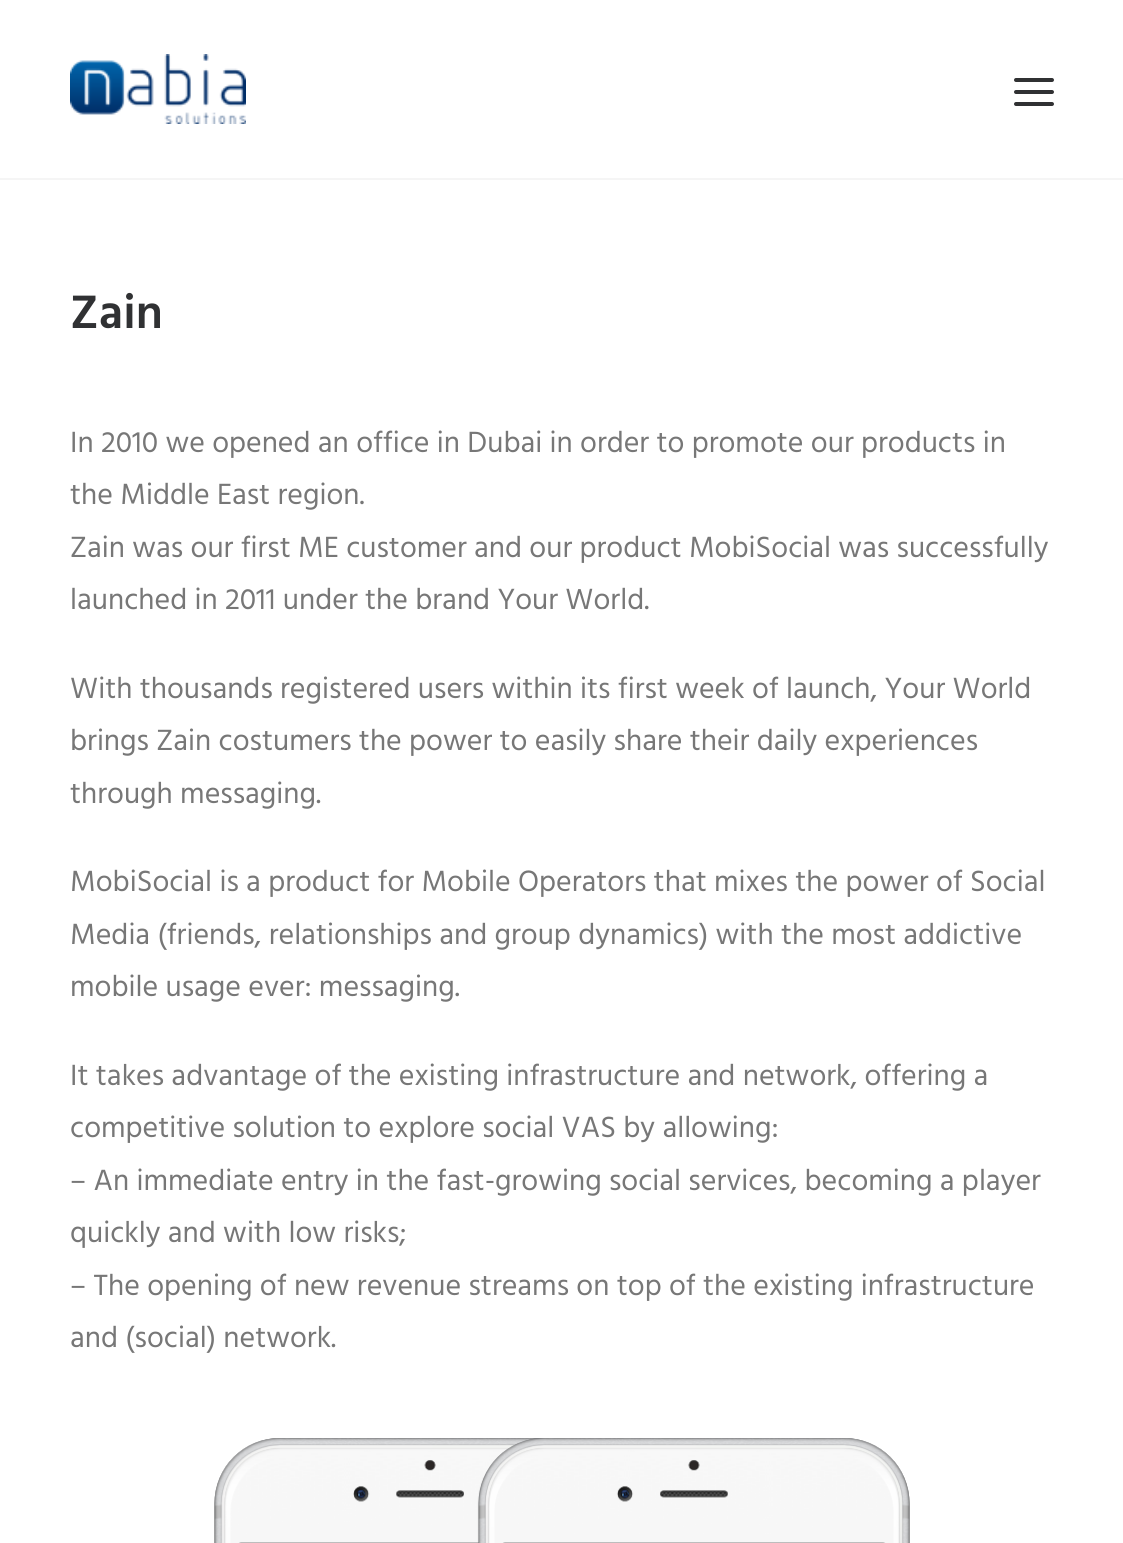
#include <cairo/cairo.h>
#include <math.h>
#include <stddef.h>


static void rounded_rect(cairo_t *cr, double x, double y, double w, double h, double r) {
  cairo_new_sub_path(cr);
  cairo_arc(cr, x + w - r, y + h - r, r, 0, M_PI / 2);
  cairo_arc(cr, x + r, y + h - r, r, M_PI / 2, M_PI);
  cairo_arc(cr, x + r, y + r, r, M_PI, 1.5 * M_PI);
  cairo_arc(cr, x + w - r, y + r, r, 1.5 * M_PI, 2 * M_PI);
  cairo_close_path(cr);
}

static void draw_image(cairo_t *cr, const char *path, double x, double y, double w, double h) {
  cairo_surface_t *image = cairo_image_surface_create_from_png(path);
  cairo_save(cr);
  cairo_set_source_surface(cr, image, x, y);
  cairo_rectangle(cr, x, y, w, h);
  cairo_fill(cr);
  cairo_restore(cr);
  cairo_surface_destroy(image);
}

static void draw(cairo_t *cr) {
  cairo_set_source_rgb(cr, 1, 1, 1);
  cairo_paint(cr);
  cairo_set_source_rgb(cr, 245 / 255.0, 245 / 255.0, 245 / 255.0);
  cairo_rectangle(cr, 0, 178, 1123, 2);
  cairo_fill(cr);
  draw_image(cr, "images/1.png", 70, 54, 176, 70);
  cairo_set_source_rgb(cr, 48 / 255.0, 49 / 255.0, 51 / 255.0);
  rounded_rect(cr, 1014, 90, 40, 4, 2);
  cairo_fill(cr);
  rounded_rect(cr, 1014, 78, 40, 4, 2);
  cairo_fill(cr);
  rounded_rect(cr, 1014, 102, 40, 4, 2);
  cairo_fill(cr);
  draw_image(cr, "images/2.png", 214, 1438, 696, 105);
  cairo_select_font_face(cr, "Hind SemiBold", CAIRO_FONT_SLANT_NORMAL, CAIRO_FONT_WEIGHT_NORMAL);
  cairo_set_font_size(cr, 48);
  cairo_move_to(cr, 70, 328);
  cairo_show_text(cr, "Zain");
  cairo_select_font_face(cr, "Hind", CAIRO_FONT_SLANT_NORMAL, CAIRO_FONT_WEIGHT_NORMAL);
  cairo_set_font_size(cr, 30);
  cairo_set_source_rgb(cr, 119 / 255.0, 119 / 255.0, 119 / 255.0);
  cairo_move_to(cr, 70, 452);
  cairo_show_text(cr, "In 2010 we opened an office in Dubai in order to promote our products in");
  cairo_move_to(cr, 70, 504);
  cairo_show_text(cr, "the Middle East region.");
  cairo_move_to(cr, 70, 557);
  cairo_show_text(cr, "Zain was our first ME customer and our product MobiSocial was successfully");
  cairo_move_to(cr, 70, 609);
  cairo_show_text(cr, "launched in 2011 under the brand Your World.");
  cairo_move_to(cr, 70, 698);
  cairo_show_text(cr, "With thousands registered users within its first week of launch, Your World");
  cairo_move_to(cr, 70, 750);
  cairo_show_text(cr, "brings Zain costumers the power to easily share their daily experiences");
  cairo_move_to(cr, 70, 803);
  cairo_show_text(cr, "through messaging.");
  cairo_move_to(cr, 70, 891);
  cairo_show_text(cr, "MobiSocial is a product for Mobile Operators that mixes the power of Social");
  cairo_move_to(cr, 70, 944);
  cairo_show_text(cr, "Media (friends, relationships and group dynamics) with the most addictive");
  cairo_move_to(cr, 70, 996);
  cairo_show_text(cr, "mobile usage ever: messaging.");
  cairo_move_to(cr, 70, 1085);
  cairo_show_text(cr, "It takes advantage of the existing infrastructure and network, offering a");
  cairo_move_to(cr, 70, 1137);
  cairo_show_text(cr, "competitive solution to explore social VAS by allowing:");
  cairo_move_to(cr, 70, 1190);
  cairo_show_text(cr, "– An immediate entry in the fast-growing social services, becoming a player");
  cairo_move_to(cr, 70, 1242);
  cairo_show_text(cr, "quickly and with low risks;");
  cairo_move_to(cr, 70, 1295);
  cairo_show_text(cr, "– The opening of new revenue streams on top of the existing infrastructure");
  cairo_move_to(cr, 70, 1347);
  cairo_show_text(cr, "and (social) network.");
}

int main(void) {
  cairo_surface_t *surface = cairo_image_surface_create(CAIRO_FORMAT_RGB24, 1123, 1543);
  cairo_t *cr = cairo_create(surface);
  cairo_font_options_t *options = cairo_font_options_create();
  cairo_font_options_set_hint_metrics(options, CAIRO_HINT_METRICS_OFF);
  cairo_font_options_set_hint_style(options, CAIRO_HINT_STYLE_NONE);
  cairo_set_font_options(cr, options);
  cairo_set_miter_limit(cr, 4);
  draw(cr);
  cairo_surface_write_to_png(surface, "out.png");
  cairo_font_options_destroy(options);
  cairo_destroy(cr);
  cairo_surface_destroy(surface);
  return 0;
}
